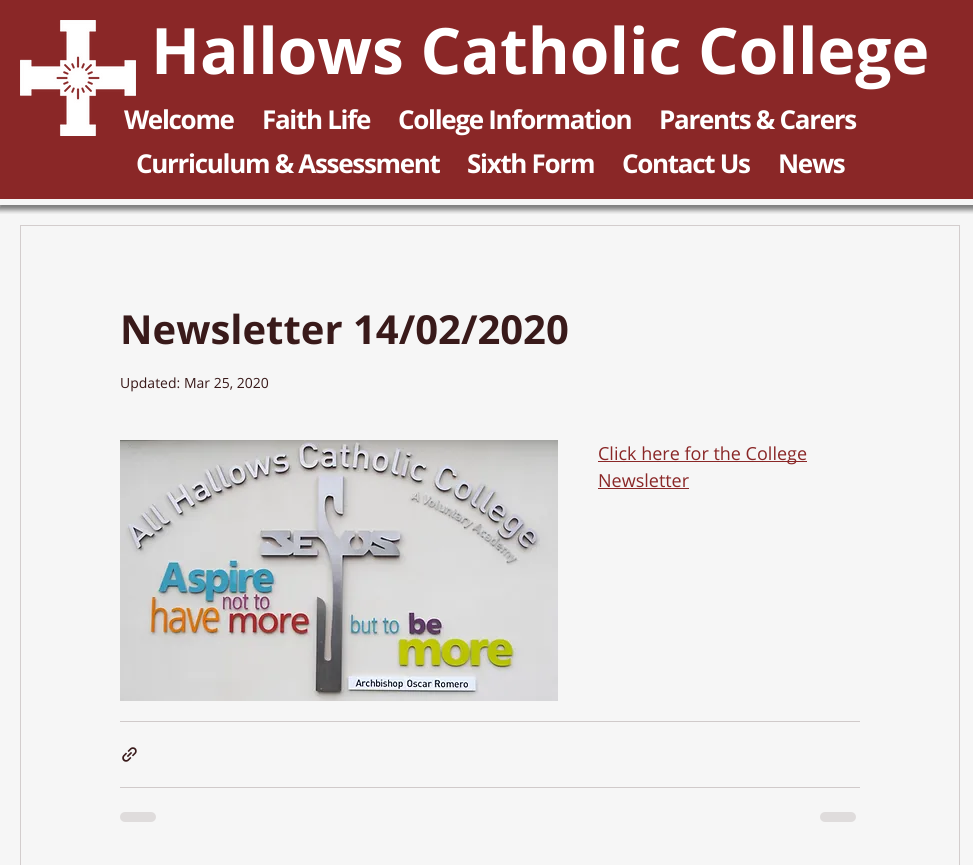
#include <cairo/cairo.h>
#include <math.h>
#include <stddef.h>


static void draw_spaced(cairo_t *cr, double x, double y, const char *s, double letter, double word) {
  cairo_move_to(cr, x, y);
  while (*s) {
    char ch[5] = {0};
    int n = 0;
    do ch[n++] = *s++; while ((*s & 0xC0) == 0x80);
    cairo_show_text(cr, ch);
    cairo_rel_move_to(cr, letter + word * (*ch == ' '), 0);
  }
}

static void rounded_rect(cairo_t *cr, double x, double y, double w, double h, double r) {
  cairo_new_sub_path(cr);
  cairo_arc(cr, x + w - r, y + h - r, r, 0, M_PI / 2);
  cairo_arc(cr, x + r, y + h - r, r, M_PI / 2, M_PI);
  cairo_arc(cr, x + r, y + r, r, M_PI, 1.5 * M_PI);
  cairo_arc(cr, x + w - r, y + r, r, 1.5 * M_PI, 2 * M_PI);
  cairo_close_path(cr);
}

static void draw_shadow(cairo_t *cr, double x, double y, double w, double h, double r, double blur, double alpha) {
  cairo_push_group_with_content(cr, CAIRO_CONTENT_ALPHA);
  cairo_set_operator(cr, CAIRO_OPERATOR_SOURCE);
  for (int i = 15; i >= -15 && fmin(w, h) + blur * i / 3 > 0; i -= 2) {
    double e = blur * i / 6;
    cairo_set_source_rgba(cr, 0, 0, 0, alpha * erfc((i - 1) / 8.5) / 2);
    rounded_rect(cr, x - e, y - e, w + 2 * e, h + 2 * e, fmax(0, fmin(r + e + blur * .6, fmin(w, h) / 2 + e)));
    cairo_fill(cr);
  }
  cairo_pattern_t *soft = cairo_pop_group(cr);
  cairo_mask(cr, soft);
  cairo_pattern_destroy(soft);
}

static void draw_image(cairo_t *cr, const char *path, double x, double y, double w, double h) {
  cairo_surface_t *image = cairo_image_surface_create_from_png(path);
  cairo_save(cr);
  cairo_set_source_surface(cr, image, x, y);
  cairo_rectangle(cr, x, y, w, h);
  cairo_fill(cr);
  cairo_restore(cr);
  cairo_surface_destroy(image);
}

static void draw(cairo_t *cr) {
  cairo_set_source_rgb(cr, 138 / 255.0, 39 / 255.0, 39 / 255.0);
  cairo_paint(cr);
  cairo_set_source_rgb(cr, 246 / 255.0, 246 / 255.0, 246 / 255.0);
  cairo_rectangle(cr, 0, 205, 973, 660);
  cairo_fill(cr);
  cairo_save(cr);
  cairo_rectangle(cr, 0, 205, 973, 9);
  cairo_clip(cr);
  cairo_set_source_rgb(cr, 0, 0, 0);
  draw_shadow(cr, -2, -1, 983, 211, 0, 2.5, 0.5);
  cairo_restore(cr);
  cairo_rectangle(cr, 0, 199, 973, 6);
  cairo_fill(cr);
  cairo_rectangle(cr, 20.5, 225.5, 939, 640);
  cairo_set_source_rgb(cr, 211 / 255.0, 205 / 255.0, 205 / 255.0);
  cairo_set_line_width(cr, 1);
  cairo_stroke(cr);
  draw_image(cr, "images/2.png", 120, 440, 438, 261);
  cairo_set_source_rgb(cr, 138 / 255.0, 39 / 255.0, 39 / 255.0);
  cairo_rectangle(cr, 598, 461, 209, 1);
  cairo_fill(cr);
  cairo_rectangle(cr, 598, 488, 91, 1);
  cairo_fill(cr);
  cairo_set_source_rgb(cr, 208 / 255.0, 202 / 255.0, 202 / 255.0);
  cairo_rectangle(cr, 120, 721, 740, 1);
  cairo_fill(cr);
  draw_image(cr, "images/3.png", 122, 747, 15, 15);
  cairo_rectangle(cr, 120, 787, 740, 1);
  cairo_fill(cr);
  cairo_set_source_rgb(cr, 223 / 255.0, 220 / 255.0, 220 / 255.0);
  rounded_rect(cr, 120, 812, 36, 10, 5);
  cairo_fill(cr);
  rounded_rect(cr, 820, 812, 36, 10, 5);
  cairo_fill(cr);
  cairo_select_font_face(cr, "Open Sans", CAIRO_FONT_SLANT_NORMAL, CAIRO_FONT_WEIGHT_BOLD);
  cairo_set_font_size(cr, 64);
  cairo_set_source_rgb(cr, 1, 1, 1);
  cairo_move_to(cr, 151, 74);
  cairo_show_text(cr, "Hallows Catholic College");
  cairo_set_font_size(cr, 26);
  draw_spaced(cr, 124, 129, "Welcome", -1.3, 0);
  draw_image(cr, "images/1.png", 20, 20, 116, 116);
  draw_spaced(cr, 262, 129, "Faith Life", -1.3, 0);
  draw_spaced(cr, 398, 129, "College Information", -1.3, 0);
  draw_spaced(cr, 659, 129, "Parents & Carers", -1.3, 0);
  draw_spaced(cr, 136, 173, "Curriculum & Assessment", -1.3, 0);
  draw_spaced(cr, 467, 173, "Sixth Form", -1.3, 0);
  draw_spaced(cr, 622, 173, "Contact Us", -1.3, 0);
  draw_spaced(cr, 778, 173, "News", -1.3, 0);
  cairo_set_font_size(cr, 40);
  cairo_set_source_rgb(cr, 57 / 255.0, 26 / 255.0, 26 / 255.0);
  cairo_move_to(cr, 120, 344);
  cairo_show_text(cr, "Newsletter 14/02/2020");
  cairo_select_font_face(cr, "Open Sans", CAIRO_FONT_SLANT_NORMAL, CAIRO_FONT_WEIGHT_NORMAL);
  cairo_set_font_size(cr, 14);
  cairo_move_to(cr, 120, 388);
  cairo_show_text(cr, "Updated: Mar 25, 2020");
  cairo_set_font_size(cr, 18);
  cairo_set_source_rgb(cr, 138 / 255.0, 39 / 255.0, 39 / 255.0);
  cairo_move_to(cr, 598, 460);
  cairo_show_text(cr, "Click here for the College");
  cairo_move_to(cr, 598, 487);
  cairo_show_text(cr, "Newsletter");
}

int main(void) {
  cairo_surface_t *surface = cairo_image_surface_create(CAIRO_FORMAT_RGB24, 973, 865);
  cairo_t *cr = cairo_create(surface);
  cairo_font_options_t *options = cairo_font_options_create();
  cairo_font_options_set_hint_metrics(options, CAIRO_HINT_METRICS_OFF);
  cairo_font_options_set_hint_style(options, CAIRO_HINT_STYLE_NONE);
  cairo_set_font_options(cr, options);
  cairo_set_miter_limit(cr, 4);
  draw(cr);
  cairo_surface_write_to_png(surface, "out.png");
  cairo_font_options_destroy(options);
  cairo_destroy(cr);
  cairo_surface_destroy(surface);
  return 0;
}
